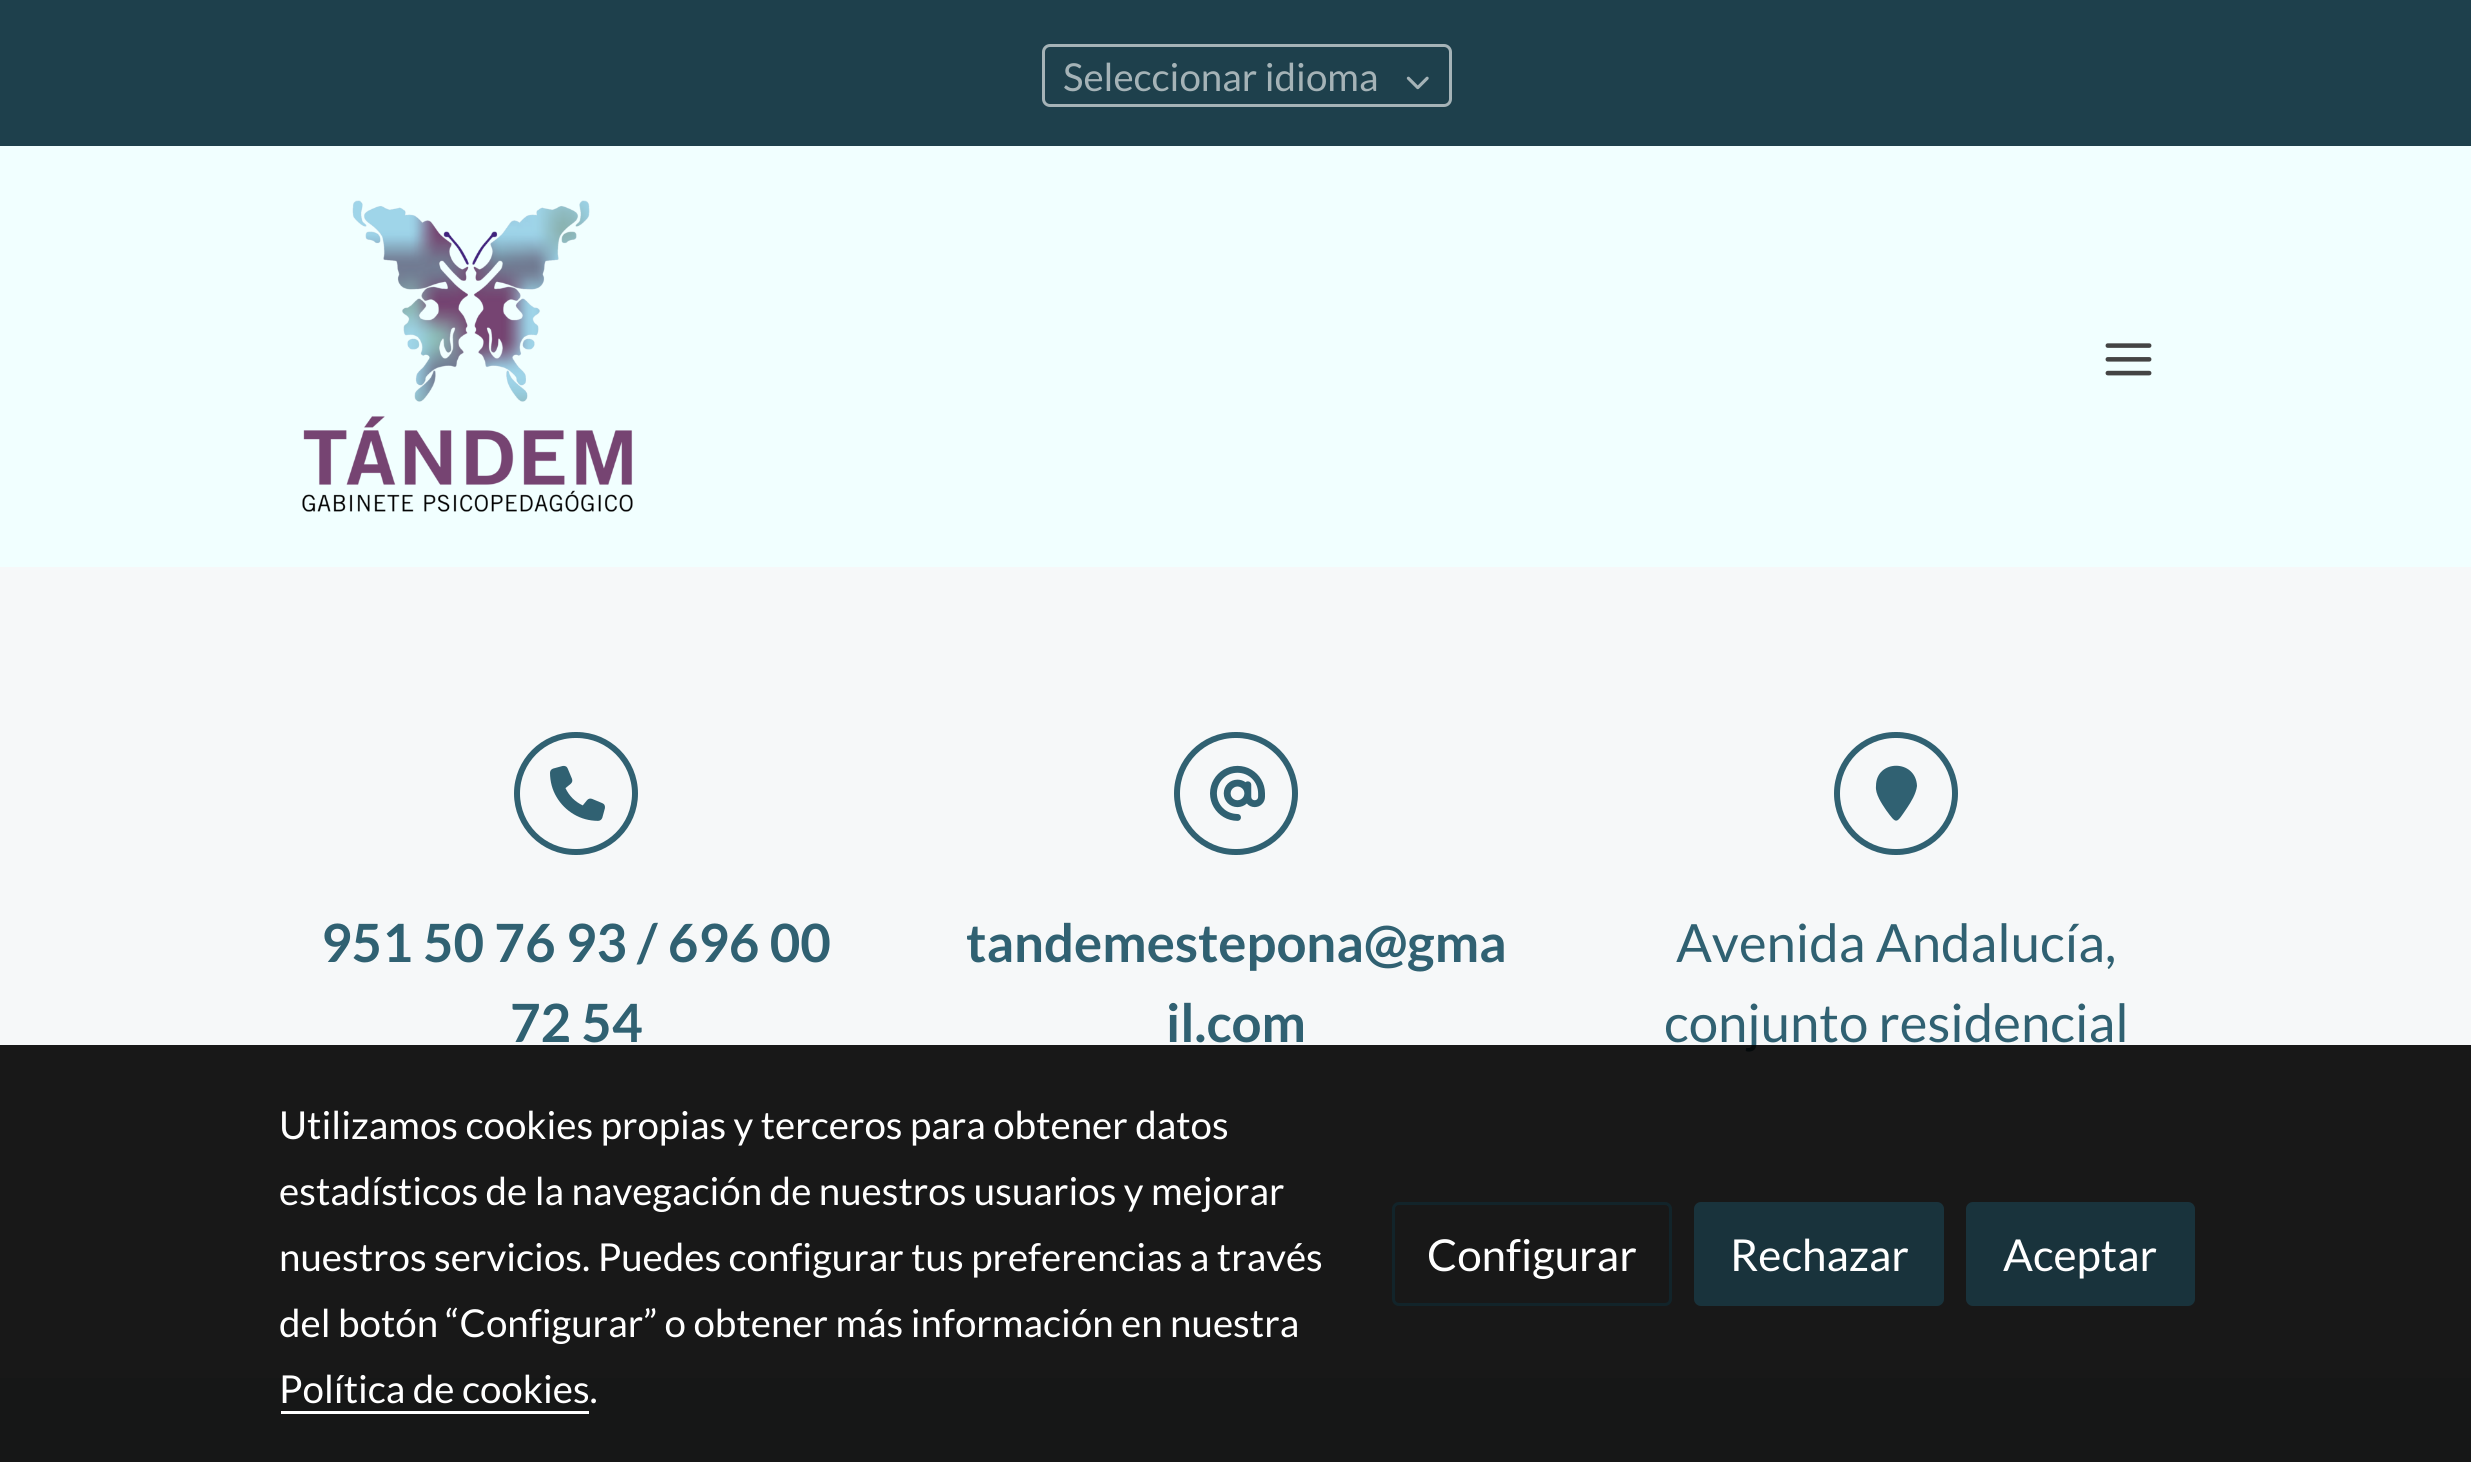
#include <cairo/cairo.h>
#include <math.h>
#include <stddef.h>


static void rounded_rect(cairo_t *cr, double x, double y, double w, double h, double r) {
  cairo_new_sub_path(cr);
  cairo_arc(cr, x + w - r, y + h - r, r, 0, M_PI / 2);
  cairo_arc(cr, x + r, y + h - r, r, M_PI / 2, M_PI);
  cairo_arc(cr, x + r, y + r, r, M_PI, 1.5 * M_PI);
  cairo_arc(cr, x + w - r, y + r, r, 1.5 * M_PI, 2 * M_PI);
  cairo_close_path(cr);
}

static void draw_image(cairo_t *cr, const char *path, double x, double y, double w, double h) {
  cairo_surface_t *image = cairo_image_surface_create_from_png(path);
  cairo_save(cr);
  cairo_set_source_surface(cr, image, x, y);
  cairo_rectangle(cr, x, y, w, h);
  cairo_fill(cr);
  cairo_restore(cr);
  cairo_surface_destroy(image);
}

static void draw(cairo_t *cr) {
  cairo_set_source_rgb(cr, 246 / 255.0, 248 / 255.0, 249 / 255.0);
  cairo_paint(cr);
  cairo_set_source_rgb(cr, 30 / 255.0, 64 / 255.0, 76 / 255.0);
  cairo_rectangle(cr, 0, 0, 2471, 146);
  cairo_fill(cr);
  rounded_rect(cr, 1043.5, 45.5, 407, 60, 6.5);
  cairo_set_source_rgb(cr, 165 / 255.0, 179 / 255.0, 183 / 255.0);
  cairo_set_line_width(cr, 3);
  cairo_stroke(cr);
  draw_image(cr, "images/1.png", 1406, 76, 23, 14);
  cairo_set_source_rgb(cr, 241 / 255.0, 1, 1);
  cairo_rectangle(cr, 0, 146, 2471, 421);
  cairo_fill(cr);
  draw_image(cr, "images/2.png", 302, 200, 331, 312);
  draw_image(cr, "images/3.png", 2105, 343, 47, 33);
  rounded_rect(cr, 517, 735, 118, 117, 58.5);
  cairo_set_source_rgb(cr, 48 / 255.0, 97 / 255.0, 114 / 255.0);
  cairo_set_line_width(cr, 6);
  cairo_stroke(cr);
  draw_image(cr, "images/4.png", 550, 765, 55, 56);
  rounded_rect(cr, 1177, 735, 118, 117, 58.5);
  cairo_stroke(cr);
  draw_image(cr, "images/5.png", 1210, 765, 55, 56);
  rounded_rect(cr, 1837, 735, 118, 117, 58.5);
  cairo_stroke(cr);
  cairo_new_path(cr);
  cairo_move_to(cr, 1917, 786);
  cairo_curve_to(cr, 1916, 794, 1911, 802, 1907, 808);
  cairo_curve_to(cr, 1896, 824, 1897, 825, 1886, 810);
  cairo_curve_to(cr, 1882, 804, 1875, 794, 1876, 786);
  cairo_curve_to(cr, 1876, 759, 1916, 759, 1917, 786);
  cairo_close_path(cr);
  cairo_fill(cr);
  cairo_set_source_rgb(cr, 225 / 255.0, 232 / 255.0, 234 / 255.0);
  cairo_rectangle(cr, 0, 1378, 2471, 84);
  cairo_fill(cr);
  cairo_select_font_face(cr, "Lato", CAIRO_FONT_SLANT_NORMAL, CAIRO_FONT_WEIGHT_NORMAL);
  cairo_set_font_size(cr, 38.5);
  cairo_set_source_rgb(cr, 165 / 255.0, 179 / 255.0, 183 / 255.0);
  cairo_move_to(cr, 1063, 91);
  cairo_show_text(cr, "Seleccionar idioma");
  cairo_select_font_face(cr, "Lato", CAIRO_FONT_SLANT_NORMAL, CAIRO_FONT_WEIGHT_BOLD);
  cairo_set_font_size(cr, 52.75);
  cairo_set_source_rgb(cr, 48 / 255.0, 97 / 255.0, 114 / 255.0);
  cairo_move_to(cr, 321, 962);
  cairo_show_text(cr, "951 50 76 93 / 696 00");
  cairo_move_to(cr, 510, 1042);
  cairo_show_text(cr, "72 54");
  cairo_move_to(cr, 966, 962);
  cairo_show_text(cr, "tandemestepona@gma");
  cairo_move_to(cr, 1166, 1042);
  cairo_show_text(cr, "il.com");
  cairo_select_font_face(cr, "Lato", CAIRO_FONT_SLANT_NORMAL, CAIRO_FONT_WEIGHT_NORMAL);
  cairo_move_to(cr, 1676, 962);
  cairo_show_text(cr, "Avenida Andalucía,");
  cairo_move_to(cr, 1664, 1042);
  cairo_show_text(cr, "conjunto residencial");
  cairo_set_source_rgba(cr, 0, 0, 0, 0.9);
  cairo_rectangle(cr, 0, 1045, 2471, 417);
  cairo_fill(cr);
  cairo_set_font_size(cr, 38.5);
  cairo_set_source_rgb(cr, 1, 1, 1);
  cairo_move_to(cr, 279, 1139);
  cairo_show_text(cr, "Utilizamos cookies propias y terceros para obtener datos");
  cairo_move_to(cr, 279, 1205);
  cairo_show_text(cr, "estadísticos de la navegación de nuestros usuarios y mejorar");
  cairo_move_to(cr, 279, 1271);
  cairo_show_text(cr, "nuestros servicios. Puedes configurar tus preferencias a través");
  cairo_move_to(cr, 279, 1337);
  cairo_show_text(cr, "del botón “Configurar” o obtener más información en nuestra");
  cairo_move_to(cr, 279, 1403);
  cairo_show_text(cr, "Política de cookies.");
  cairo_rectangle(cr, 281, 1411, 308, 3);
  cairo_fill(cr);
  rounded_rect(cr, 1393.5, 1203.5, 277, 101, 5.5);
  cairo_set_source_rgb(cr, 18 / 255.0, 36 / 255.0, 42 / 255.0);
  cairo_set_line_width(cr, 3);
  cairo_stroke(cr);
  cairo_set_font_size(cr, 44);
  cairo_set_source_rgb(cr, 1, 1, 1);
  cairo_move_to(cr, 1427, 1271);
  cairo_show_text(cr, "Configurar");
  cairo_set_source_rgb(cr, 25 / 255.0, 51 / 255.0, 60 / 255.0);
  rounded_rect(cr, 1695.5, 1203.5, 247, 101, 5.5);
  cairo_fill_preserve(cr);
  cairo_stroke(cr);
  cairo_set_source_rgb(cr, 1, 1, 1);
  cairo_move_to(cr, 1730, 1271);
  cairo_show_text(cr, "Rechazar");
  cairo_set_source_rgb(cr, 25 / 255.0, 51 / 255.0, 60 / 255.0);
  rounded_rect(cr, 1967.5, 1203.5, 226, 101, 5.5);
  cairo_fill_preserve(cr);
  cairo_stroke(cr);
  cairo_set_source_rgb(cr, 1, 1, 1);
  cairo_move_to(cr, 2003, 1271);
  cairo_show_text(cr, "Aceptar");
}

int main(void) {
  cairo_surface_t *surface = cairo_image_surface_create(CAIRO_FORMAT_RGB24, 2471, 1462);
  cairo_t *cr = cairo_create(surface);
  cairo_font_options_t *options = cairo_font_options_create();
  cairo_font_options_set_hint_metrics(options, CAIRO_HINT_METRICS_OFF);
  cairo_font_options_set_hint_style(options, CAIRO_HINT_STYLE_NONE);
  cairo_set_font_options(cr, options);
  cairo_set_miter_limit(cr, 4);
  draw(cr);
  cairo_surface_write_to_png(surface, "out.png");
  cairo_font_options_destroy(options);
  cairo_destroy(cr);
  cairo_surface_destroy(surface);
  return 0;
}
